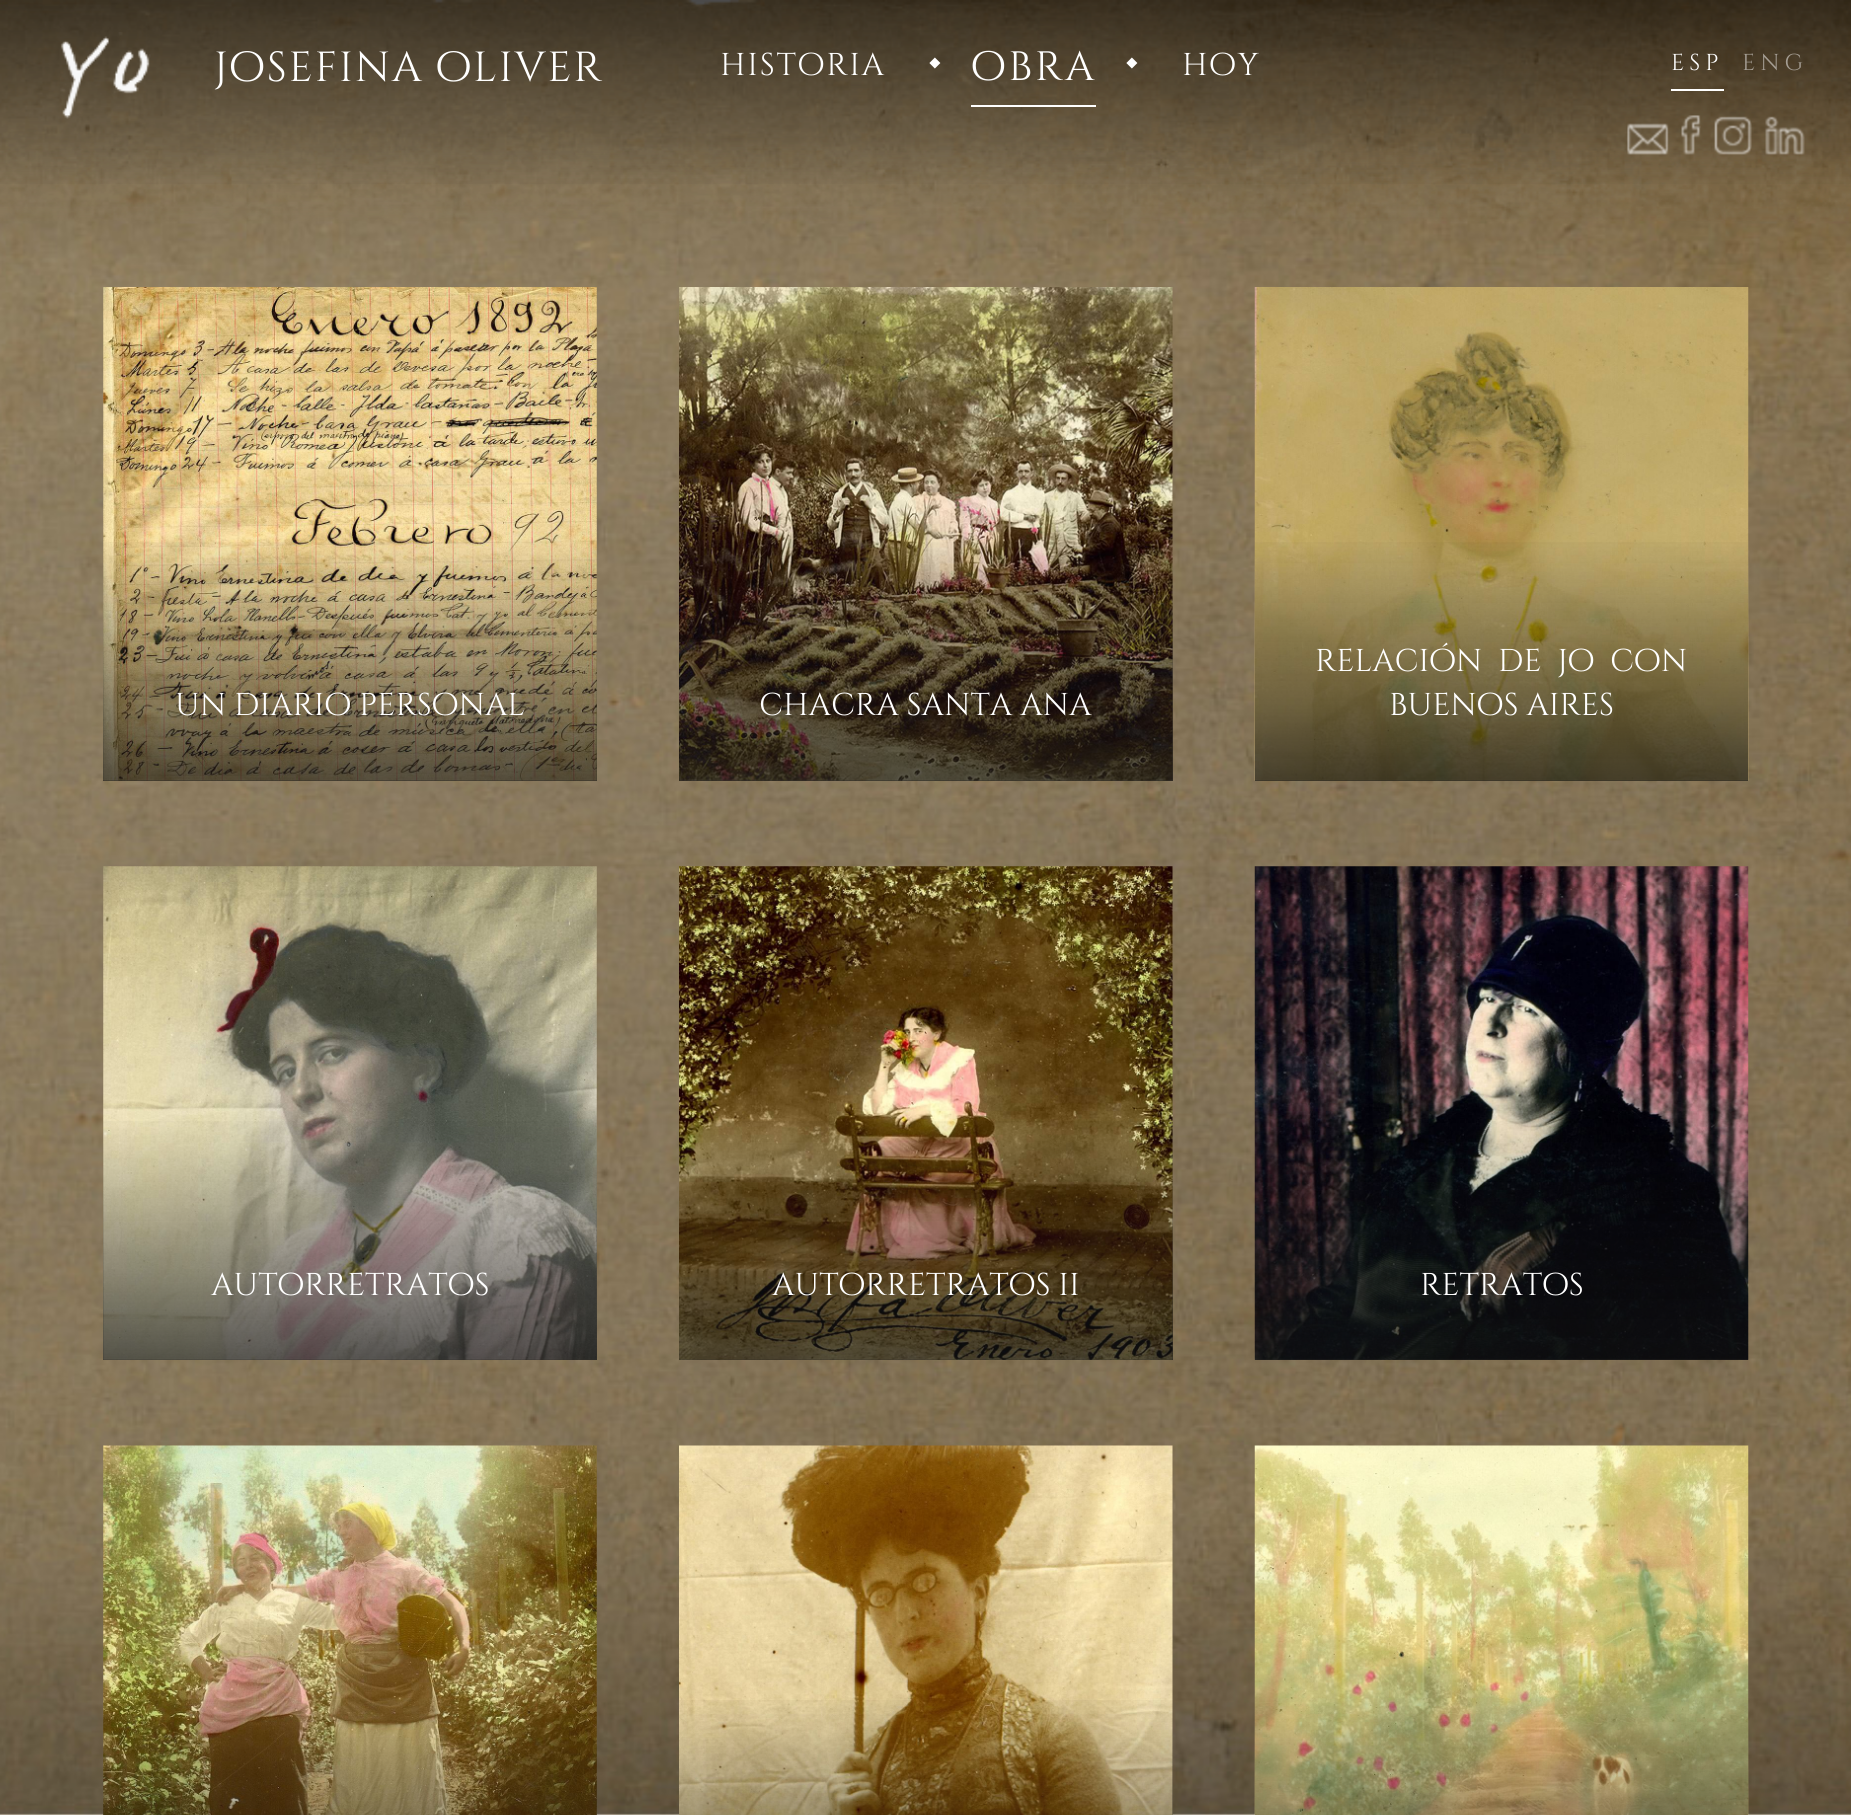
#include <cairo/cairo.h>
#include <math.h>
#include <stddef.h>


static void draw_spaced(cairo_t *cr, double x, double y, const char *s, double letter, double word) {
  cairo_move_to(cr, x, y);
  while (*s) {
    char ch[5] = {0};
    int n = 0;
    do ch[n++] = *s++; while ((*s & 0xC0) == 0x80);
    cairo_show_text(cr, ch);
    cairo_rel_move_to(cr, letter + word * (*ch == ' '), 0);
  }
}

static void draw_image(cairo_t *cr, const char *path, double x, double y, double w, double h) {
  cairo_surface_t *image = cairo_image_surface_create_from_png(path);
  cairo_save(cr);
  cairo_set_source_surface(cr, image, x, y);
  cairo_rectangle(cr, x, y, w, h);
  cairo_fill(cr);
  cairo_restore(cr);
  cairo_surface_destroy(image);
}

static void draw(cairo_t *cr) {
  cairo_pattern_t *gradient;
  cairo_set_source_rgb(cr, 1, 1, 1);
  cairo_paint(cr);
  draw_image(cr, "images/1.png", 0, 0, 1851, 1815);
  draw_image(cr, "images/2.png", 0, 0, 1851, 221);
  gradient = cairo_pattern_create_linear(926, 0, 926, 193);
  cairo_pattern_add_color_stop_rgba(gradient, 0, 0, 0, 0, 0.45);
  cairo_pattern_add_color_stop_rgba(gradient, 1, 0, 0, 0, 0);
  cairo_set_source(cr, gradient);
  cairo_pattern_destroy(gradient);
  cairo_rectangle(cr, 0, 0, 1851, 184);
  cairo_fill(cr);
  draw_image(cr, "images/3.png", 60, 32, 91, 87);
  cairo_set_source_rgb(cr, 1, 1, 1);
  cairo_rectangle(cr, 971, 105, 125, 2);
  cairo_fill(cr);
  cairo_rectangle(cr, 1671, 89, 53, 2);
  cairo_fill(cr);
  draw_image(cr, "images/4.png", 1627, 123, 42, 32);
  draw_image(cr, "images/5.png", 1681, 115, 20, 40);
  draw_image(cr, "images/6.png", 1714, 116, 38, 39);
  draw_image(cr, "images/7.png", 1765, 116, 40, 39);
  draw_image(cr, "images/8.png", 103, 287, 494, 494);
  gradient = cairo_pattern_create_linear(350, 287, 350, 781);
  cairo_pattern_add_color_stop_rgba(gradient, 0.5, 18 / 255.0, 18 / 255.0, 18 / 255.0, 0);
  cairo_pattern_add_color_stop_rgba(gradient, 1, 18 / 255.0, 18 / 255.0, 18 / 255.0, 0.7);
  cairo_set_source(cr, gradient);
  cairo_pattern_destroy(gradient);
  cairo_rectangle(cr, 103, 542, 494, 239);
  cairo_fill(cr);
  draw_image(cr, "images/9.png", 679, 287, 494, 494);
  gradient = cairo_pattern_create_linear(926, 287, 926, 781);
  cairo_pattern_add_color_stop_rgba(gradient, 0.5, 18 / 255.0, 18 / 255.0, 18 / 255.0, 0);
  cairo_pattern_add_color_stop_rgba(gradient, 1, 18 / 255.0, 18 / 255.0, 18 / 255.0, 0.7);
  cairo_set_source(cr, gradient);
  cairo_pattern_destroy(gradient);
  cairo_rectangle(cr, 679, 542, 494, 239);
  cairo_fill(cr);
  draw_image(cr, "images/10.png", 1254, 287, 495, 494);
  gradient = cairo_pattern_create_linear(1502, 287, 1502, 781);
  cairo_pattern_add_color_stop_rgba(gradient, 0.5, 18 / 255.0, 18 / 255.0, 18 / 255.0, 0);
  cairo_pattern_add_color_stop_rgba(gradient, 1, 18 / 255.0, 18 / 255.0, 18 / 255.0, 0.7);
  cairo_set_source(cr, gradient);
  cairo_pattern_destroy(gradient);
  cairo_rectangle(cr, 1255, 542, 493, 239);
  cairo_fill(cr);
  draw_image(cr, "images/11.png", 103, 866, 494, 494);
  gradient = cairo_pattern_create_linear(350, 866, 350, 1360);
  cairo_pattern_add_color_stop_rgba(gradient, 0.5, 18 / 255.0, 18 / 255.0, 18 / 255.0, 0);
  cairo_pattern_add_color_stop_rgba(gradient, 1, 18 / 255.0, 18 / 255.0, 18 / 255.0, 0.7);
  cairo_set_source(cr, gradient);
  cairo_pattern_destroy(gradient);
  cairo_rectangle(cr, 103, 1121, 494, 239);
  cairo_fill(cr);
  draw_image(cr, "images/12.png", 679, 866, 494, 494);
  gradient = cairo_pattern_create_linear(926, 866, 926, 1360);
  cairo_pattern_add_color_stop_rgba(gradient, 0.5, 18 / 255.0, 18 / 255.0, 18 / 255.0, 0);
  cairo_pattern_add_color_stop_rgba(gradient, 1, 18 / 255.0, 18 / 255.0, 18 / 255.0, 0.7);
  cairo_set_source(cr, gradient);
  cairo_pattern_destroy(gradient);
  cairo_rectangle(cr, 679, 1121, 494, 239);
  cairo_fill(cr);
  draw_image(cr, "images/13.png", 1254, 866, 495, 494);
  gradient = cairo_pattern_create_linear(1502, 866, 1502, 1360);
  cairo_pattern_add_color_stop_rgba(gradient, 0.5, 18 / 255.0, 18 / 255.0, 18 / 255.0, 0);
  cairo_pattern_add_color_stop_rgba(gradient, 1, 18 / 255.0, 18 / 255.0, 18 / 255.0, 0.7);
  cairo_set_source(cr, gradient);
  cairo_pattern_destroy(gradient);
  cairo_rectangle(cr, 1255, 1121, 493, 239);
  cairo_fill(cr);
  draw_image(cr, "images/14.png", 103, 1445, 494, 370);
  gradient = cairo_pattern_create_linear(350, 1446, 350, 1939);
  cairo_pattern_add_color_stop_rgba(gradient, 0.5, 18 / 255.0, 18 / 255.0, 18 / 255.0, 0);
  cairo_pattern_add_color_stop_rgba(gradient, 1, 18 / 255.0, 18 / 255.0, 18 / 255.0, 0.7);
  cairo_set_source(cr, gradient);
  cairo_pattern_destroy(gradient);
  cairo_rectangle(cr, 103, 1700, 494, 115);
  cairo_fill(cr);
  draw_image(cr, "images/15.png", 679, 1445, 494, 370);
  gradient = cairo_pattern_create_linear(926, 1446, 926, 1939);
  cairo_pattern_add_color_stop_rgba(gradient, 0.5, 18 / 255.0, 18 / 255.0, 18 / 255.0, 0);
  cairo_pattern_add_color_stop_rgba(gradient, 1, 18 / 255.0, 18 / 255.0, 18 / 255.0, 0.7);
  cairo_set_source(cr, gradient);
  cairo_pattern_destroy(gradient);
  cairo_rectangle(cr, 679, 1700, 494, 115);
  cairo_fill(cr);
  draw_image(cr, "images/16.png", 1254, 1445, 495, 370);
  cairo_select_font_face(cr, "Cinzel Decorative", CAIRO_FONT_SLANT_NORMAL, CAIRO_FONT_WEIGHT_NORMAL);
  cairo_set_font_size(cr, 42);
  cairo_set_source_rgb(cr, 1, 1, 1);
  draw_spaced(cr, 214, 81, "josefina oliver", 1.75, 0);
  cairo_set_font_size(cr, 31.5);
  draw_spaced(cr, 720, 75, "historia", 1.75, 0);
  cairo_select_font_face(cr, "Liberation Serif", CAIRO_FONT_SLANT_NORMAL, CAIRO_FONT_WEIGHT_NORMAL);
  cairo_save(cr);
  cairo_translate(cr, 924, 66);
  cairo_rotate(cr, 45 * M_PI / 180);
  draw_spaced(cr, 0, 0, "▪", 1.75, 0);
  cairo_restore(cr);
  cairo_select_font_face(cr, "Cinzel Decorative", CAIRO_FONT_SLANT_NORMAL, CAIRO_FONT_WEIGHT_NORMAL);
  cairo_set_font_size(cr, 41);
  draw_spaced(cr, 971, 80, "obra", 2.5, 0);
  cairo_select_font_face(cr, "Liberation Serif", CAIRO_FONT_SLANT_NORMAL, CAIRO_FONT_WEIGHT_NORMAL);
  cairo_set_font_size(cr, 31.5);
  cairo_save(cr);
  cairo_translate(cr, 1121, 66);
  cairo_rotate(cr, 45 * M_PI / 180);
  draw_spaced(cr, 0, 0, "▪", 1.75, 0);
  cairo_restore(cr);
  cairo_select_font_face(cr, "Cinzel Decorative", CAIRO_FONT_SLANT_NORMAL, CAIRO_FONT_WEIGHT_NORMAL);
  draw_spaced(cr, 1182, 75, "hoy", 1.75, 0);
  cairo_set_font_size(cr, 23);
  draw_spaced(cr, 1671, 70, "esp", 5, 0);
  cairo_set_source_rgb(cr, 164 / 255.0, 157 / 255.0, 147 / 255.0);
  draw_spaced(cr, 1742, 70, "eng", 5, 0);
  cairo_set_font_size(cr, 31.5);
  cairo_set_source_rgb(cr, 1, 1, 1);
  cairo_move_to(cr, 175, 715);
  cairo_show_text(cr, "un diario personal");
  cairo_move_to(cr, 759, 715);
  cairo_show_text(cr, "chacra santa ana");
  cairo_move_to(cr, 1315, 671);
  cairo_show_text(cr, "relación  de  jo  con");
  cairo_move_to(cr, 1389, 715);
  cairo_show_text(cr, "buenos aires");
  cairo_move_to(cr, 211, 1295);
  cairo_show_text(cr, "autorretratos");
  cairo_move_to(cr, 772, 1295);
  cairo_show_text(cr, "autorretratos ii");
  cairo_move_to(cr, 1420, 1295);
  cairo_show_text(cr, "retratos");
}

int main(void) {
  cairo_surface_t *surface = cairo_image_surface_create(CAIRO_FORMAT_RGB24, 1851, 1815);
  cairo_t *cr = cairo_create(surface);
  cairo_font_options_t *options = cairo_font_options_create();
  cairo_font_options_set_hint_metrics(options, CAIRO_HINT_METRICS_OFF);
  cairo_font_options_set_hint_style(options, CAIRO_HINT_STYLE_NONE);
  cairo_set_font_options(cr, options);
  cairo_set_miter_limit(cr, 4);
  draw(cr);
  cairo_surface_write_to_png(surface, "out.png");
  cairo_font_options_destroy(options);
  cairo_destroy(cr);
  cairo_surface_destroy(surface);
  return 0;
}
